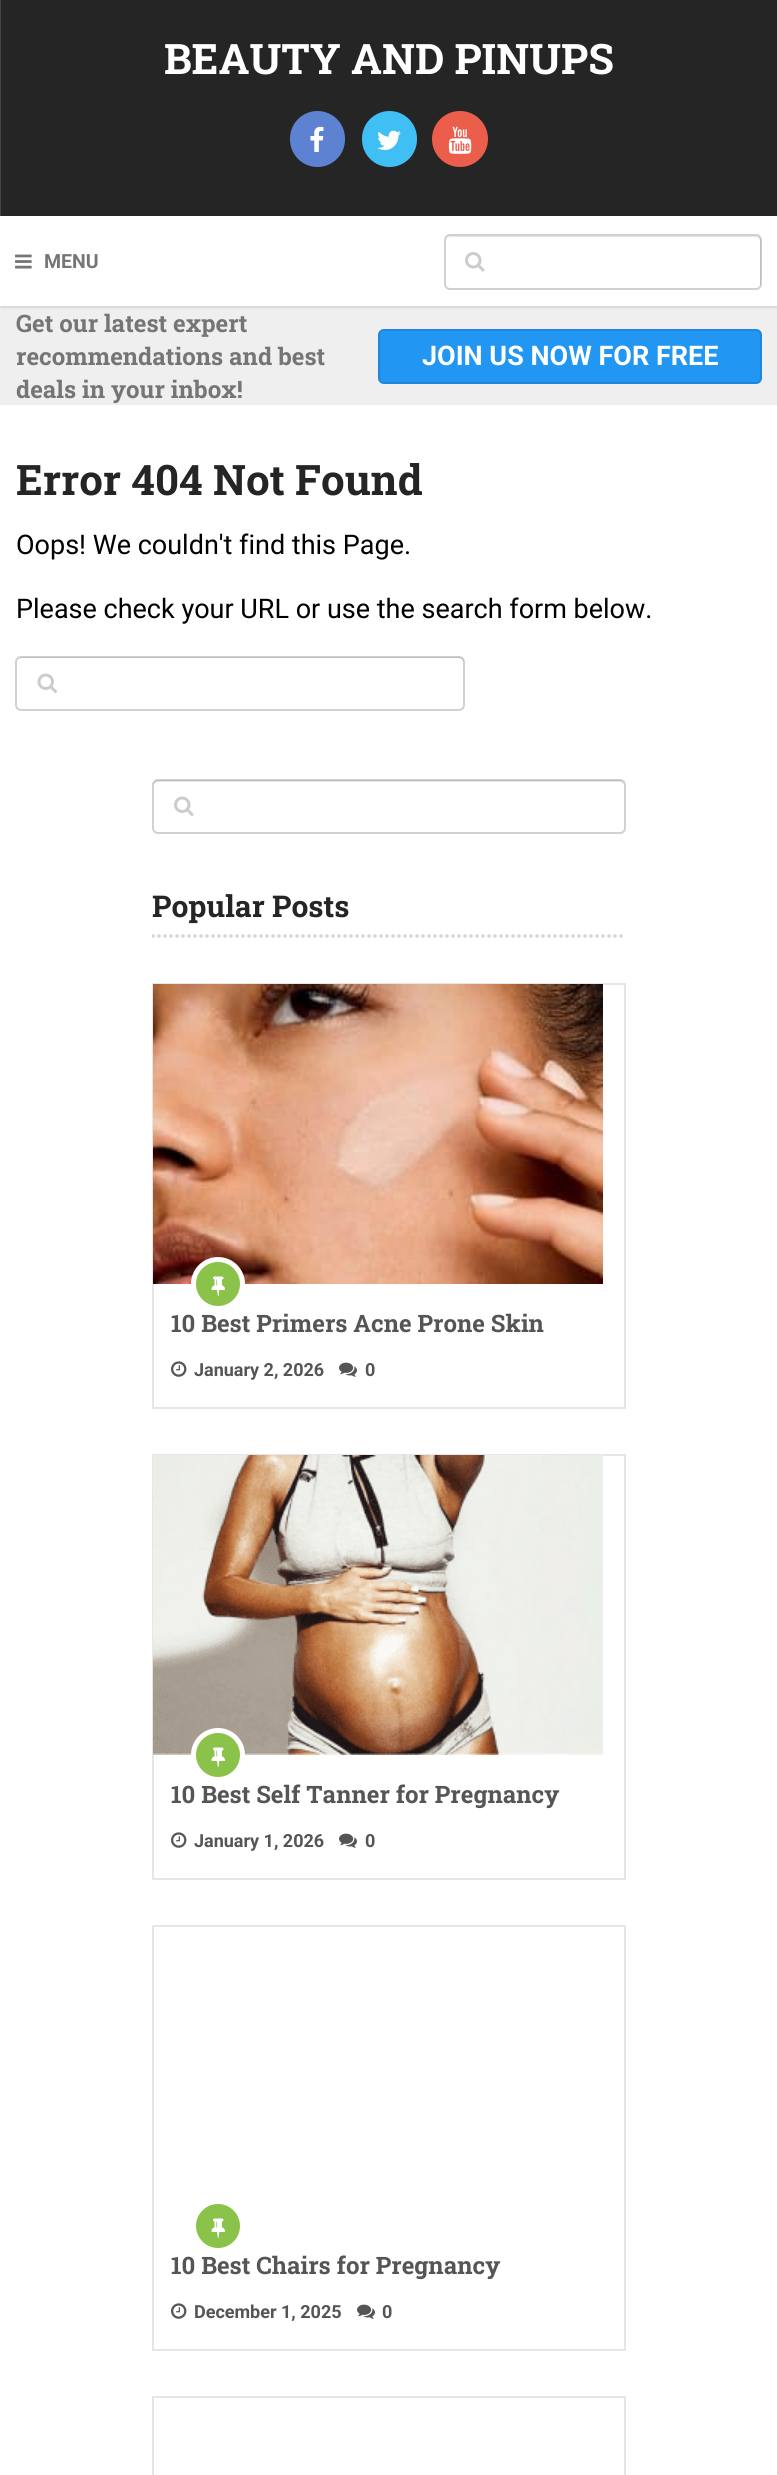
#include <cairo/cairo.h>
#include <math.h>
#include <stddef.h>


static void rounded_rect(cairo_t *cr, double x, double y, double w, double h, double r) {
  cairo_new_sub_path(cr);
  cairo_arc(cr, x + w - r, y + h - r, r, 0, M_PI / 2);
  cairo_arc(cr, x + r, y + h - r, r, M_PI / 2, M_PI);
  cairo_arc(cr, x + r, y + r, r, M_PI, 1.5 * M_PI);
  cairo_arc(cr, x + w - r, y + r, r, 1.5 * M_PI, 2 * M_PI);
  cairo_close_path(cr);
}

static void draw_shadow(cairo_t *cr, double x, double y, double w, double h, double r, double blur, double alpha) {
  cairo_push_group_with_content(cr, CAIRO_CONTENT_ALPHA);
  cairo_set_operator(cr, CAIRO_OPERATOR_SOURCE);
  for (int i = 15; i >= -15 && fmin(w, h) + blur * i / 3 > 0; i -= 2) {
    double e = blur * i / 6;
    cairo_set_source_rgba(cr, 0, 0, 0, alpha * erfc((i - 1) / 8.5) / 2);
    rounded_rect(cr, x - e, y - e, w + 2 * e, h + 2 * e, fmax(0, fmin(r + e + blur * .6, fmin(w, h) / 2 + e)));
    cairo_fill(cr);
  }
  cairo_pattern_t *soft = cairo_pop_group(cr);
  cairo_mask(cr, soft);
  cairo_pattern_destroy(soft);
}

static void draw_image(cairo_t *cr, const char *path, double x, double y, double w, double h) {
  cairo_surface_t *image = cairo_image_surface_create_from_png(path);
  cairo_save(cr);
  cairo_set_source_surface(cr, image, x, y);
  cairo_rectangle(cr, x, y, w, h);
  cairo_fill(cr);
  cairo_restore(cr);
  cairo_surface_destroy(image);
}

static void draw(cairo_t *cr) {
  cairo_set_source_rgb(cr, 239 / 255.0, 239 / 255.0, 239 / 255.0);
  cairo_paint(cr);
  cairo_set_source_rgb(cr, 37 / 255.0, 37 / 255.0, 37 / 255.0);
  cairo_rectangle(cr, 0, 0, 777, 216);
  cairo_fill(cr);
  cairo_set_source_rgb(cr, 93 / 255.0, 130 / 255.0, 209 / 255.0);
  rounded_rect(cr, 290, 111, 55, 56, 27.5);
  cairo_fill(cr);
  draw_image(cr, "images/1.png", 310, 126, 14, 26);
  cairo_set_source_rgb(cr, 64 / 255.0, 191 / 255.0, 245 / 255.0);
  rounded_rect(cr, 362, 111, 55, 56, 27.5);
  cairo_fill(cr);
  draw_image(cr, "images/2.png", 377, 130, 24, 20);
  cairo_set_source_rgb(cr, 235 / 255.0, 94 / 255.0, 76 / 255.0);
  cairo_arc(cr, 460, 139, 28, 0, 2 * M_PI);
  cairo_fill(cr);
  draw_image(cr, "images/3.png", 448, 126, 24, 28);
  cairo_set_source_rgb(cr, 0, 0, 0);
  draw_shadow(cr, 0, 218, 777, 90, 0, 1, 0.1);
  cairo_set_source_rgb(cr, 1, 1, 1);
  cairo_rectangle(cr, 0, 216, 777, 90);
  cairo_fill(cr);
  cairo_set_source_rgba(cr, 1, 1, 1, 0.15);
  cairo_rectangle(cr, 0, 0, 1, 309);
  cairo_fill(cr);
  draw_image(cr, "images/4.png", 15, 254, 17, 15);
  cairo_set_source_rgb(cr, 230 / 255.0, 230 / 255.0, 230 / 255.0);
  cairo_new_path(cr);
  cairo_move_to(cr, 450, 237);
  cairo_line_to(cr, 756, 237);
  cairo_curve_to(cr, 758, 237, 760, 239, 760, 242);
  cairo_line_to(cr, 760, 286);
  cairo_curve_to(cr, 761, 285, 761, 284, 761, 283);
  cairo_line_to(cr, 761, 241);
  cairo_curve_to(cr, 761, 238, 759, 236, 756, 236);
  cairo_line_to(cr, 451, 236);
  cairo_curve_to(cr, 448, 236, 446, 238, 446, 241);
  cairo_line_to(cr, 446, 242);
  cairo_curve_to(cr, 446, 239, 448, 237, 450, 237);
  cairo_close_path(cr);
  cairo_fill(cr);
  rounded_rect(cr, 445, 235, 316, 54, 5);
  cairo_set_source_rgba(cr, 0, 0, 0, 0.18);
  cairo_stroke(cr);
  draw_image(cr, "images/5.png", 465, 252, 20, 20);
  cairo_set_source_rgb(cr, 33 / 255.0, 150 / 255.0, 243 / 255.0);
  rounded_rect(cr, 378, 329, 384, 55, 6);
  cairo_fill(cr);
  rounded_rect(cr, 379, 330, 382, 53, 5);
  cairo_set_source_rgba(cr, 0, 0, 0, 0.1);
  cairo_stroke(cr);
  cairo_set_source_rgb(cr, 1, 1, 1);
  cairo_rectangle(cr, 0, 405, 777, 2070);
  cairo_fill(cr);
  cairo_set_source_rgb(cr, 230 / 255.0, 230 / 255.0, 230 / 255.0);
  cairo_new_path(cr);
  cairo_move_to(cr, 21, 658);
  cairo_line_to(cr, 459, 658);
  cairo_curve_to(cr, 461, 658, 464, 661, 464, 663);
  cairo_line_to(cr, 464, 662);
  cairo_curve_to(cr, 464, 659, 462, 657, 459, 657);
  cairo_line_to(cr, 22, 657);
  cairo_curve_to(cr, 20, 657, 18, 658, 17, 660);
  cairo_curve_to(cr, 18, 659, 20, 658, 21, 658);
  cairo_close_path(cr);
  cairo_fill(cr);
  rounded_rect(cr, 16, 657, 448, 53, 5);
  cairo_set_source_rgba(cr, 0, 0, 0, 0.18);
  cairo_stroke(cr);
  draw_image(cr, "images/6.png", 37, 673, 20, 20);
  cairo_set_source_rgb(cr, 230 / 255.0, 230 / 255.0, 230 / 255.0);
  cairo_new_path(cr);
  cairo_move_to(cr, 158, 782);
  cairo_line_to(cr, 620, 782);
  cairo_curve_to(cr, 622, 782, 624, 784, 624, 786);
  cairo_line_to(cr, 624, 785);
  cairo_curve_to(cr, 624, 782, 622, 780, 619, 780);
  cairo_line_to(cr, 158, 780);
  cairo_curve_to(cr, 155, 780, 153, 782, 153, 785);
  cairo_line_to(cr, 153, 786);
  cairo_curve_to(cr, 153, 784, 155, 782, 158, 782);
  cairo_close_path(cr);
  cairo_fill(cr);
  rounded_rect(cr, 153, 780, 472, 53, 5);
  cairo_set_source_rgba(cr, 0, 0, 0, 0.18);
  cairo_stroke(cr);
  draw_image(cr, "images/7.png", 174, 796, 20, 20);
  cairo_save(cr);
  cairo_rectangle(cr, 152, 890, 474, 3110);
  cairo_clip(cr);
  cairo_new_path(cr);
  cairo_move_to(cr, 151.5, 936);
  cairo_line_to(cr, 625.5, 936);
  cairo_set_source_rgb(cr, 209 / 255.0, 209 / 255.0, 209 / 255.0);
  cairo_set_line_width(cr, 3);
  cairo_set_dash(cr, (double[]){3, 3}, 2, 0);
  cairo_stroke(cr);
  cairo_restore(cr);
  cairo_rectangle(cr, 153, 984, 472, 424);
  cairo_set_source_rgb(cr, 230 / 255.0, 230 / 255.0, 230 / 255.0);
  cairo_stroke(cr);
  draw_image(cr, "images/8.png", 153, 984, 450, 300);
  cairo_set_source_rgb(cr, 139 / 255.0, 195 / 255.0, 74 / 255.0);
  cairo_arc(cr, 218, 1284, 24.5, 0, 2 * M_PI);
  cairo_fill_preserve(cr);
  cairo_set_source_rgb(cr, 1, 1, 1);
  cairo_set_line_width(cr, 5);
  cairo_stroke(cr);
  draw_image(cr, "images/9.png", 211, 1276, 14, 20);
  draw_image(cr, "images/10.png", 171, 1361, 16, 16);
  draw_image(cr, "images/11.png", 339, 1362, 18, 15);
  cairo_rectangle(cr, 153, 1455, 472, 424);
  cairo_set_source_rgb(cr, 230 / 255.0, 230 / 255.0, 230 / 255.0);
  cairo_set_line_width(cr, 2);
  cairo_stroke(cr);
  draw_image(cr, "images/12.png", 153, 1455, 450, 300);
  cairo_set_source_rgb(cr, 139 / 255.0, 195 / 255.0, 74 / 255.0);
  cairo_arc(cr, 218, 1755, 24.5, 0, 2 * M_PI);
  cairo_fill_preserve(cr);
  cairo_set_source_rgb(cr, 1, 1, 1);
  cairo_set_line_width(cr, 5);
  cairo_stroke(cr);
  draw_image(cr, "images/9.png", 211, 1747, 14, 20);
  draw_image(cr, "images/10.png", 171, 1832, 16, 16);
  draw_image(cr, "images/11.png", 339, 1833, 18, 15);
  cairo_rectangle(cr, 153, 1926, 472, 424);
  cairo_set_source_rgb(cr, 230 / 255.0, 230 / 255.0, 230 / 255.0);
  cairo_set_line_width(cr, 2);
  cairo_stroke(cr);
  cairo_set_source_rgb(cr, 139 / 255.0, 195 / 255.0, 74 / 255.0);
  cairo_arc(cr, 218, 2226, 24.5, 0, 2 * M_PI);
  cairo_fill_preserve(cr);
  cairo_set_source_rgb(cr, 1, 1, 1);
  cairo_set_line_width(cr, 5);
  cairo_stroke(cr);
  draw_image(cr, "images/9.png", 211, 2218, 14, 20);
  draw_image(cr, "images/10.png", 171, 2303, 16, 16);
  draw_image(cr, "images/11.png", 357, 2304, 18, 15);
  cairo_rectangle(cr, 153, 2397, 472, 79);
  cairo_set_source_rgb(cr, 230 / 255.0, 230 / 255.0, 230 / 255.0);
  cairo_set_line_width(cr, 2);
  cairo_stroke(cr);
  cairo_select_font_face(cr, "Roboto Slab", CAIRO_FONT_SLANT_NORMAL, CAIRO_FONT_WEIGHT_BOLD);
  cairo_set_font_size(cr, 42);
  cairo_set_source_rgb(cr, 1, 1, 1);
  cairo_move_to(cr, 164, 74);
  cairo_show_text(cr, "BEAUTY AND PINUPS");
  cairo_select_font_face(cr, "Roboto", CAIRO_FONT_SLANT_NORMAL, CAIRO_FONT_WEIGHT_BOLD);
  cairo_set_font_size(cr, 19.5);
  cairo_set_source_rgb(cr, 117 / 255.0, 117 / 255.0, 117 / 255.0);
  cairo_move_to(cr, 44, 268);
  cairo_show_text(cr, "MENU");
  cairo_select_font_face(cr, "Roboto Slab", CAIRO_FONT_SLANT_NORMAL, CAIRO_FONT_WEIGHT_BOLD);
  cairo_set_font_size(cr, 24);
  cairo_move_to(cr, 16, 332);
  cairo_show_text(cr, "Get our latest expert");
  cairo_move_to(cr, 16, 365);
  cairo_show_text(cr, "recommendations and best");
  cairo_move_to(cr, 16, 398);
  cairo_show_text(cr, "deals in your inbox!");
  cairo_select_font_face(cr, "Roboto", CAIRO_FONT_SLANT_NORMAL, CAIRO_FONT_WEIGHT_BOLD);
  cairo_set_font_size(cr, 27);
  cairo_set_source_rgb(cr, 1, 1, 1);
  cairo_move_to(cr, 422, 365);
  cairo_show_text(cr, "JOIN US NOW FOR FREE");
  cairo_select_font_face(cr, "Roboto Slab", CAIRO_FONT_SLANT_NORMAL, CAIRO_FONT_WEIGHT_BOLD);
  cairo_set_font_size(cr, 42);
  cairo_set_source_rgb(cr, 37 / 255.0, 37 / 255.0, 37 / 255.0);
  cairo_move_to(cr, 16, 495);
  cairo_show_text(cr, "Error 404 Not Found");
  cairo_select_font_face(cr, "Roboto", CAIRO_FONT_SLANT_NORMAL, CAIRO_FONT_WEIGHT_NORMAL);
  cairo_set_font_size(cr, 27);
  cairo_set_source_rgb(cr, 0, 0, 0);
  cairo_move_to(cr, 16, 554);
  cairo_show_text(cr, "Oops! We couldn't find this Page.");
  cairo_move_to(cr, 16, 618);
  cairo_show_text(cr, "Please check your URL or use the search form below.");
  cairo_select_font_face(cr, "Roboto Slab", CAIRO_FONT_SLANT_NORMAL, CAIRO_FONT_WEIGHT_BOLD);
  cairo_set_font_size(cr, 30);
  cairo_set_source_rgb(cr, 37 / 255.0, 37 / 255.0, 37 / 255.0);
  cairo_move_to(cr, 152, 917);
  cairo_show_text(cr, "Popular Posts");
  cairo_set_font_size(cr, 24);
  cairo_set_source_rgb(cr, 85 / 255.0, 85 / 255.0, 85 / 255.0);
  cairo_move_to(cr, 171, 1332);
  cairo_show_text(cr, "10 Best Primers Acne Prone Skin");
  cairo_select_font_face(cr, "Roboto", CAIRO_FONT_SLANT_NORMAL, CAIRO_FONT_WEIGHT_BOLD);
  cairo_set_font_size(cr, 18);
  cairo_move_to(cr, 194, 1376);
  cairo_show_text(cr, "January 2, 2026");
  cairo_move_to(cr, 365, 1376);
  cairo_show_text(cr, "0");
  cairo_select_font_face(cr, "Roboto Slab", CAIRO_FONT_SLANT_NORMAL, CAIRO_FONT_WEIGHT_BOLD);
  cairo_set_font_size(cr, 24);
  cairo_move_to(cr, 171, 1803);
  cairo_show_text(cr, "10 Best Self Tanner for Pregnancy");
  cairo_select_font_face(cr, "Roboto", CAIRO_FONT_SLANT_NORMAL, CAIRO_FONT_WEIGHT_BOLD);
  cairo_set_font_size(cr, 18);
  cairo_move_to(cr, 194, 1847);
  cairo_show_text(cr, "January 1, 2026");
  cairo_move_to(cr, 365, 1847);
  cairo_show_text(cr, "0");
  cairo_select_font_face(cr, "Roboto Slab", CAIRO_FONT_SLANT_NORMAL, CAIRO_FONT_WEIGHT_BOLD);
  cairo_set_font_size(cr, 24);
  cairo_move_to(cr, 171, 2274);
  cairo_show_text(cr, "10 Best Chairs for Pregnancy");
  cairo_select_font_face(cr, "Roboto", CAIRO_FONT_SLANT_NORMAL, CAIRO_FONT_WEIGHT_BOLD);
  cairo_set_font_size(cr, 18);
  cairo_move_to(cr, 194, 2318);
  cairo_show_text(cr, "December 1, 2025");
  cairo_move_to(cr, 382, 2318);
  cairo_show_text(cr, "0");
}

int main(void) {
  cairo_surface_t *surface = cairo_image_surface_create(CAIRO_FORMAT_RGB24, 777, 2475);
  cairo_t *cr = cairo_create(surface);
  cairo_font_options_t *options = cairo_font_options_create();
  cairo_font_options_set_hint_metrics(options, CAIRO_HINT_METRICS_OFF);
  cairo_font_options_set_hint_style(options, CAIRO_HINT_STYLE_NONE);
  cairo_set_font_options(cr, options);
  cairo_set_miter_limit(cr, 4);
  draw(cr);
  cairo_surface_write_to_png(surface, "out.png");
  cairo_font_options_destroy(options);
  cairo_destroy(cr);
  cairo_surface_destroy(surface);
  return 0;
}
